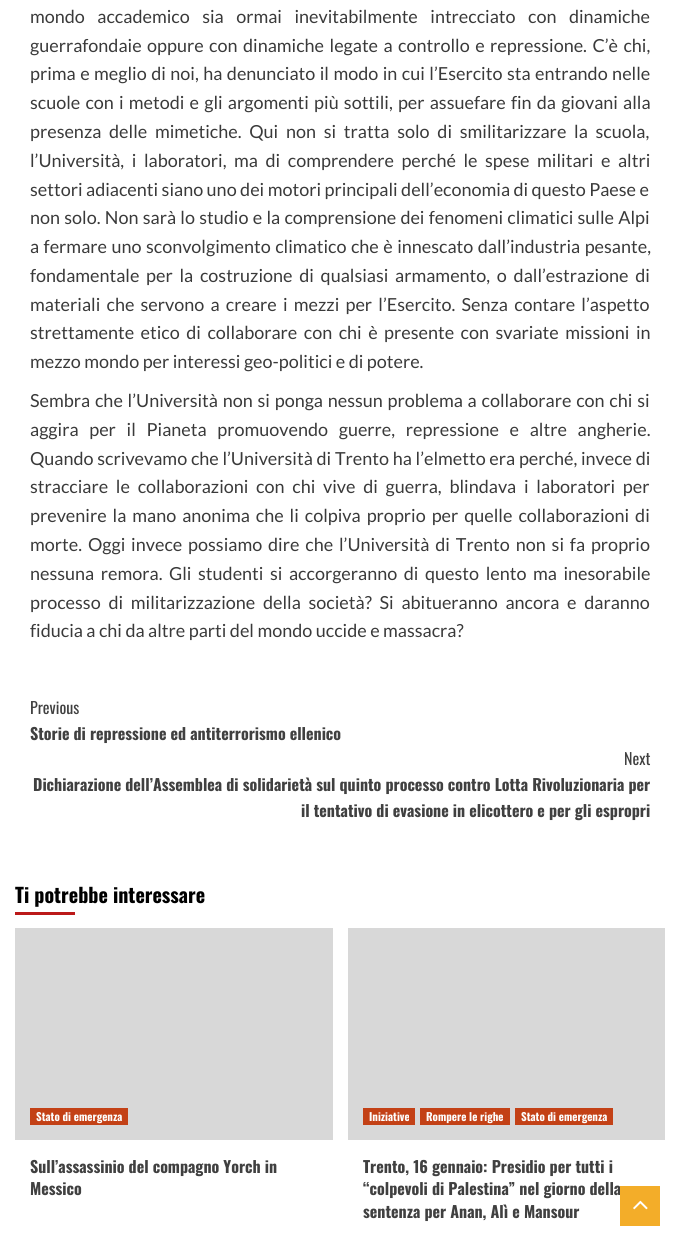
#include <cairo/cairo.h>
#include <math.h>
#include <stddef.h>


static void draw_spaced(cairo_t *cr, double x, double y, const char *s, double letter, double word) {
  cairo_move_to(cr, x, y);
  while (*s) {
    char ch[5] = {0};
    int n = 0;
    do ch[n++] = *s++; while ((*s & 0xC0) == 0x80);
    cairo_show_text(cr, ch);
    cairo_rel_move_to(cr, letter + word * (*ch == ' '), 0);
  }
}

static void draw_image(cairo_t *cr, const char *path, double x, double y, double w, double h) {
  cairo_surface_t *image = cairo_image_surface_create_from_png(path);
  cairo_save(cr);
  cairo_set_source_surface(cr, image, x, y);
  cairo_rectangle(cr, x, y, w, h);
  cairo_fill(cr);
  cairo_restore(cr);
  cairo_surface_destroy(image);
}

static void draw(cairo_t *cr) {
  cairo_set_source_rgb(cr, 1, 1, 1);
  cairo_paint(cr);
  cairo_set_source_rgb(cr, 187 / 255.0, 25 / 255.0, 25 / 255.0);
  cairo_rectangle(cr, 15, 912, 60, 3);
  cairo_fill(cr);
  cairo_set_source_rgb(cr, 216 / 255.0, 216 / 255.0, 216 / 255.0);
  cairo_rectangle(cr, 15, 928, 318, 212);
  cairo_fill(cr);
  cairo_set_source_rgb(cr, 195 / 255.0, 65 / 255.0, 22 / 255.0);
  cairo_rectangle(cr, 30, 1108, 98, 17);
  cairo_fill(cr);
  cairo_set_source_rgb(cr, 216 / 255.0, 216 / 255.0, 216 / 255.0);
  cairo_rectangle(cr, 348, 928, 317, 212);
  cairo_fill(cr);
  cairo_set_source_rgb(cr, 195 / 255.0, 65 / 255.0, 22 / 255.0);
  cairo_rectangle(cr, 363, 1108, 52, 17);
  cairo_fill(cr);
  cairo_rectangle(cr, 420, 1108, 90, 17);
  cairo_fill(cr);
  cairo_rectangle(cr, 515, 1108, 98, 17);
  cairo_fill(cr);
  cairo_select_font_face(cr, "Lato", CAIRO_FONT_SLANT_NORMAL, CAIRO_FONT_WEIGHT_NORMAL);
  cairo_set_font_size(cr, 18);
  cairo_set_source_rgb(cr, 58 / 255.0, 58 / 255.0, 58 / 255.0);
  draw_spaced(cr, 30, 23, "mondo accademico sia ormai inevitabilmente intrecciato con dinamiche", 0, 9);
  draw_spaced(cr, 30, 52, "guerrafondaie oppure con dinamiche legate a controllo e repressione. C’è chi,", 0, 2);
  draw_spaced(cr, 30, 80, "prima e meglio di noi, ha denunciato il modo in cui l’Esercito sta entrando nelle", 0, 1);
  draw_spaced(cr, 30, 109, "scuole con i metodi e gli argomenti più sottili, per assuefare fin da giovani alla", 0, 1.7);
  draw_spaced(cr, 30, 138, "presenza delle mimetiche. Qui non si tratta solo di smilitarizzare la scuola,", 0, 4.25);
  draw_spaced(cr, 30, 167, "l’Università, i laboratori, ma di comprendere perché le spese militari e altri", 0, 4.1);
  cairo_move_to(cr, 30, 196);
  cairo_show_text(cr, "settori adiacenti siano uno dei motori principali dell’economia di questo Paese e");
  draw_spaced(cr, 30, 224, "non solo. Non sarà lo studio e la comprensione dei fenomeni climatici sulle Alpi", 0, 0.8);
  draw_spaced(cr, 30, 253, "a fermare uno sconvolgimento climatico che è innescato dall’industria pesante,", 0, 1);
  draw_spaced(cr, 30, 282, "fondamentale per la costruzione di qualsiasi armamento, o dall’estrazione di", 0, 3.25);
  draw_spaced(cr, 30, 311, "materiali che servono a creare i mezzi per l’Esercito. Senza contare l’aspetto", 0, 2.75);
  draw_spaced(cr, 30, 339, "strettamente etico di collaborare con chi è presente con svariate missioni in", 0, 3);
  cairo_move_to(cr, 30, 368);
  cairo_show_text(cr, "mezzo mondo per interessi geo-politici e di potere.");
  draw_spaced(cr, 30, 407, "Sembra che l’Università non si ponga nessun problema a collaborare con chi si", 0, 1.3);
  draw_spaced(cr, 30, 436, "aggira per il Pianeta promuovendo guerre, repressione e altre angherie.", 0, 7.25);
  draw_spaced(cr, 30, 465, "Quando scrivevamo che l’Università di Trento ha l’elmetto era perché, invece di", 0, 0.25);
  draw_spaced(cr, 30, 493, "stracciare le collaborazioni con chi vive di guerra, blindava i laboratori per", 0, 4.25);
  draw_spaced(cr, 30, 522, "prevenire la mano anonima che li colpiva proprio per quelle collaborazioni di", 0, 2.5);
  draw_spaced(cr, 30, 551, "morte. Oggi invece possiamo dire che l’Università di Trento non si fa proprio", 0, 2.4);
  draw_spaced(cr, 30, 580, "nessuna remora. Gli studenti si accorgeranno di questo lento ma inesorabile", 0, 3.1);
  draw_spaced(cr, 30, 609, "processo di militarizzazione della società? Si abitueranno ancora e daranno", 0, 4.25);
  cairo_move_to(cr, 30, 637);
  cairo_show_text(cr, "fiducia a chi da altre parti del mondo uccide e massacra?");
  cairo_select_font_face(cr, "Oswald", CAIRO_FONT_SLANT_NORMAL, CAIRO_FONT_WEIGHT_NORMAL);
  cairo_set_font_size(cr, 16);
  cairo_set_source_rgb(cr, 64 / 255.0, 64 / 255.0, 64 / 255.0);
  cairo_move_to(cr, 30, 714);
  cairo_show_text(cr, "Previous");
  cairo_select_font_face(cr, "Oswald", CAIRO_FONT_SLANT_NORMAL, CAIRO_FONT_WEIGHT_BOLD);
  cairo_move_to(cr, 30, 740);
  cairo_show_text(cr, "Storie di repressione ed antiterrorismo ellenico");
  cairo_select_font_face(cr, "Oswald", CAIRO_FONT_SLANT_NORMAL, CAIRO_FONT_WEIGHT_NORMAL);
  cairo_move_to(cr, 624, 765);
  cairo_show_text(cr, "Next");
  cairo_select_font_face(cr, "Oswald", CAIRO_FONT_SLANT_NORMAL, CAIRO_FONT_WEIGHT_BOLD);
  cairo_move_to(cr, 33, 791);
  cairo_show_text(cr, "Dichiarazione dell’Assemblea di solidarietà sul quinto processo contro Lotta Rivoluzionaria per");
  cairo_move_to(cr, 301, 817);
  cairo_show_text(cr, "il tentativo di evasione in elicottero e per gli espropri");
  cairo_set_font_size(cr, 20);
  cairo_set_source_rgb(cr, 0, 0, 0);
  cairo_move_to(cr, 15, 903);
  cairo_show_text(cr, "Ti potrebbe interessare");
  cairo_set_font_size(cr, 11);
  cairo_set_source_rgb(cr, 253 / 255.0, 253 / 255.0, 253 / 255.0);
  cairo_move_to(cr, 36, 1121);
  cairo_show_text(cr, "Stato di emergenza");
  cairo_set_font_size(cr, 16);
  cairo_set_source_rgb(cr, 64 / 255.0, 64 / 255.0, 64 / 255.0);
  cairo_move_to(cr, 30, 1173);
  cairo_show_text(cr, "Sull’assassinio del compagno Yorch in");
  cairo_move_to(cr, 30, 1195);
  cairo_show_text(cr, "Messico");
  cairo_set_font_size(cr, 11);
  cairo_set_source_rgb(cr, 253 / 255.0, 253 / 255.0, 253 / 255.0);
  cairo_move_to(cr, 369, 1121);
  cairo_show_text(cr, "Iniziative");
  cairo_move_to(cr, 426, 1121);
  cairo_show_text(cr, "Rompere le righe");
  cairo_move_to(cr, 521, 1121);
  cairo_show_text(cr, "Stato di emergenza");
  cairo_set_font_size(cr, 16);
  cairo_set_source_rgb(cr, 64 / 255.0, 64 / 255.0, 64 / 255.0);
  cairo_move_to(cr, 363, 1173);
  cairo_show_text(cr, "Trento, 16 gennaio: Presidio per tutti i");
  cairo_move_to(cr, 363, 1195);
  cairo_show_text(cr, "“colpevoli di Palestina” nel giorno della");
  cairo_move_to(cr, 363, 1218);
  cairo_show_text(cr, "sentenza per Anan, Alì e Mansour");
  cairo_set_source_rgb(cr, 243 / 255.0, 173 / 255.0, 41 / 255.0);
  cairo_rectangle(cr, 620, 1186, 40, 40);
  cairo_fill(cr);
  draw_image(cr, "images/1.png", 633, 1200, 15, 10);
}

int main(void) {
  cairo_surface_t *surface = cairo_image_surface_create(CAIRO_FORMAT_RGB24, 680, 1246);
  cairo_t *cr = cairo_create(surface);
  cairo_font_options_t *options = cairo_font_options_create();
  cairo_font_options_set_hint_metrics(options, CAIRO_HINT_METRICS_OFF);
  cairo_font_options_set_hint_style(options, CAIRO_HINT_STYLE_NONE);
  cairo_set_font_options(cr, options);
  cairo_set_miter_limit(cr, 4);
  draw(cr);
  cairo_surface_write_to_png(surface, "out.png");
  cairo_font_options_destroy(options);
  cairo_destroy(cr);
  cairo_surface_destroy(surface);
  return 0;
}
